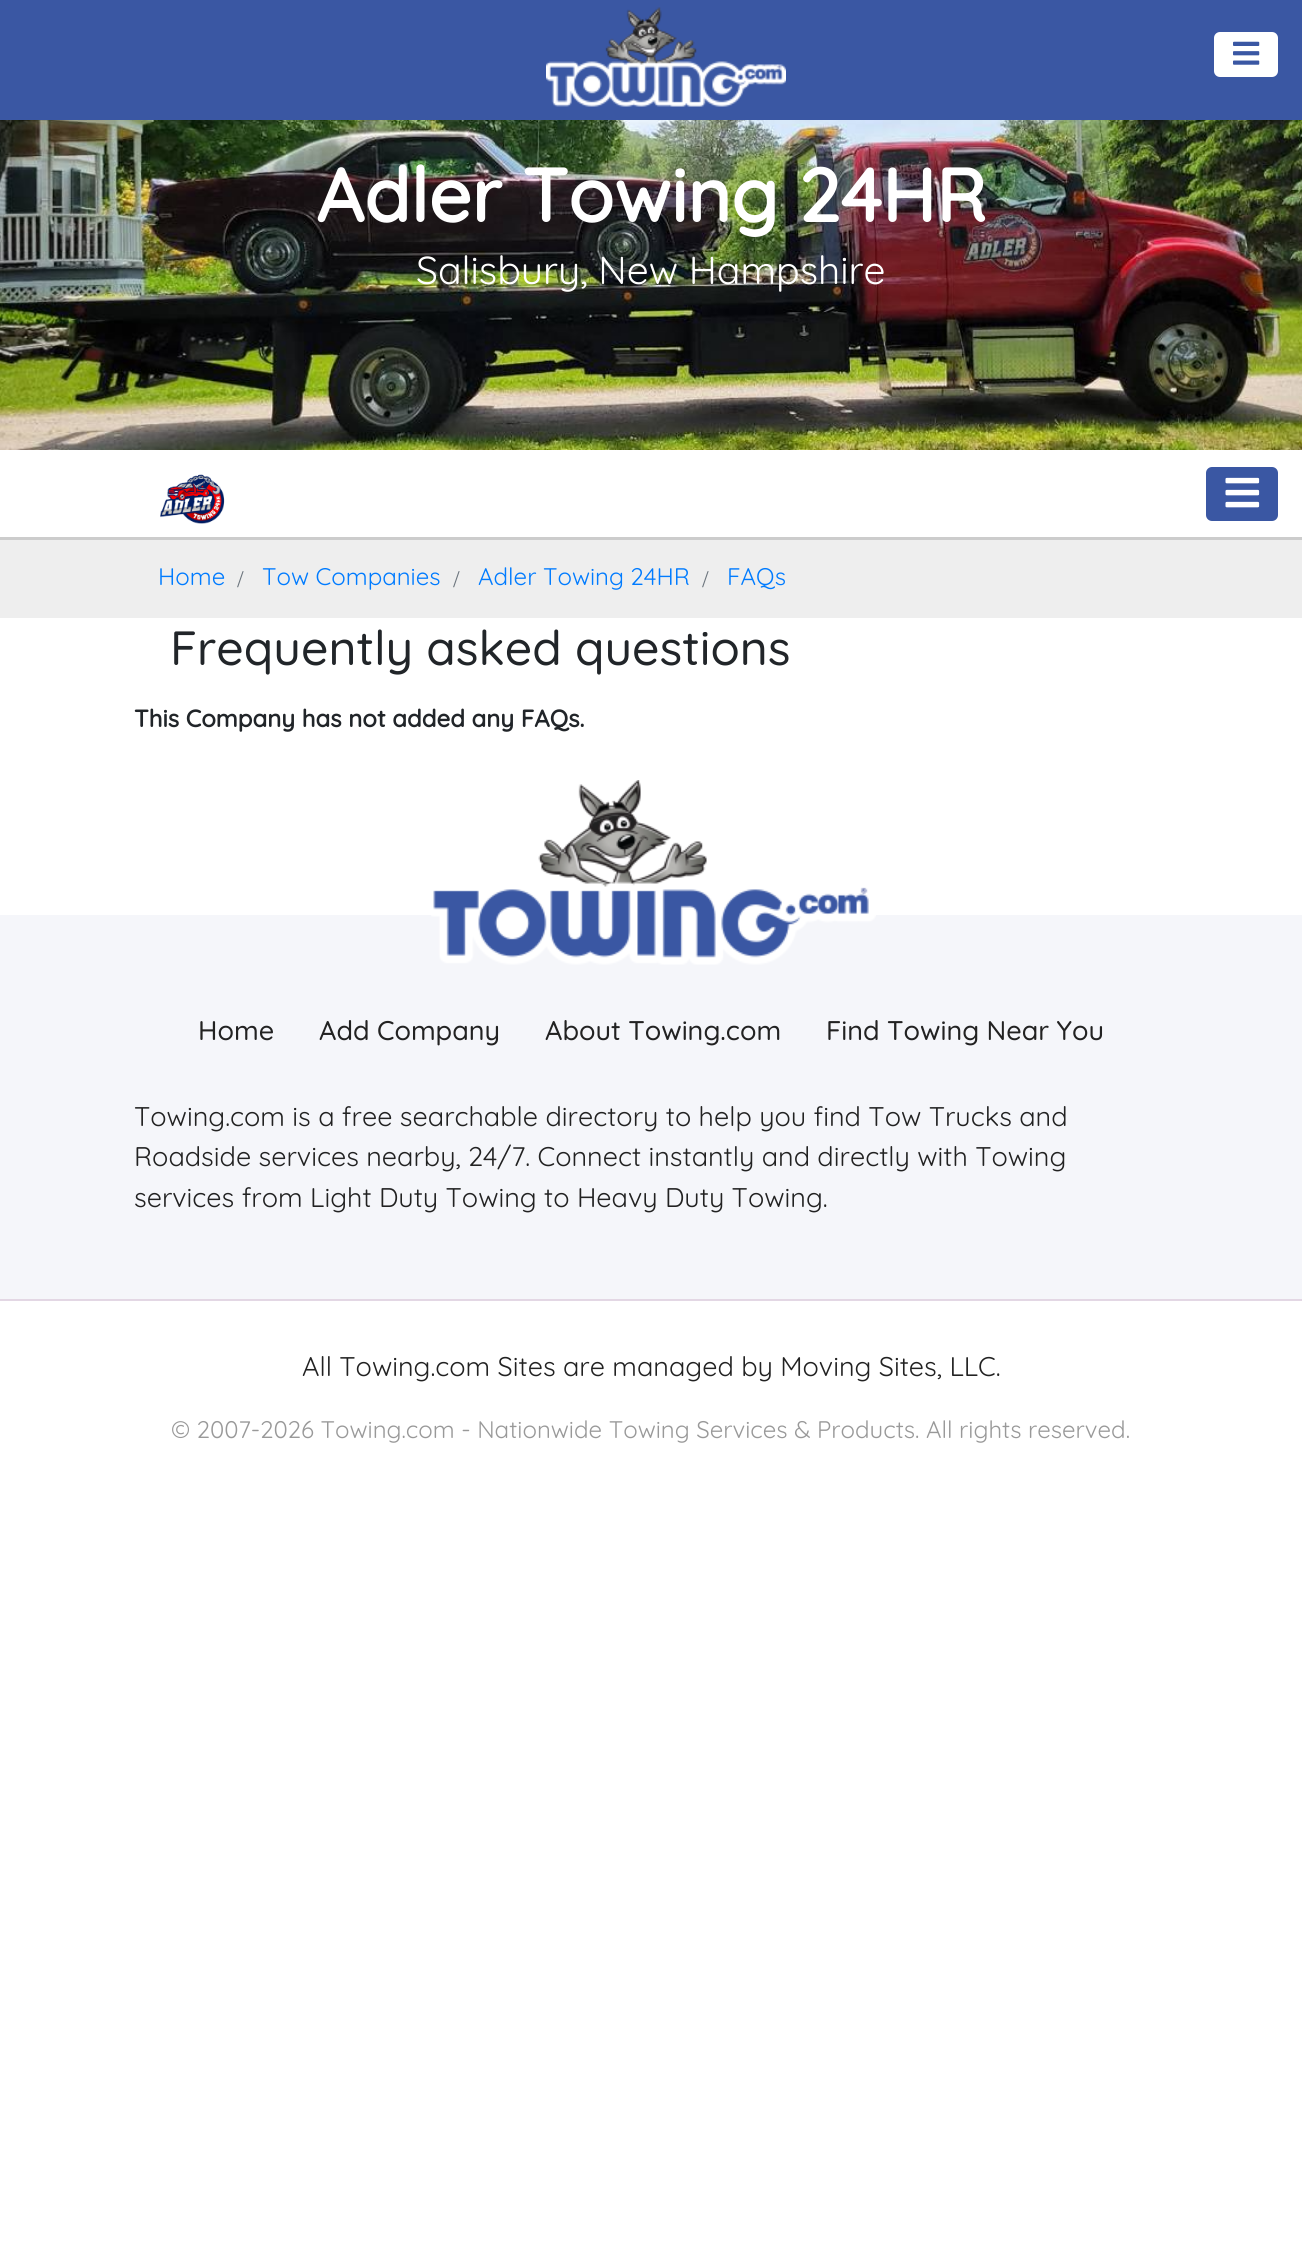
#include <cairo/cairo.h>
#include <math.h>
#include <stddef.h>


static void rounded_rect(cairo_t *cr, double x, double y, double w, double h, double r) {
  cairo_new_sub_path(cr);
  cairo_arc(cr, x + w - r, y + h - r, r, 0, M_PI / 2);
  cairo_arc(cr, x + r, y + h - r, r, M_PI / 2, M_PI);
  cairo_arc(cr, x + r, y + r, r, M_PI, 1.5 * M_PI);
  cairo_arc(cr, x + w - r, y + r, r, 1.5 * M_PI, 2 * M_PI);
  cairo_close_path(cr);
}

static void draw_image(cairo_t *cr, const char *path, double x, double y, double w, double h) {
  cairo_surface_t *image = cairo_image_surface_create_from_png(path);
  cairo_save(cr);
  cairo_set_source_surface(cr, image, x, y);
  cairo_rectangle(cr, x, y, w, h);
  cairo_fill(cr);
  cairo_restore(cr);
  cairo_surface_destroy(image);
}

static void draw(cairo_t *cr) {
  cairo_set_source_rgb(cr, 1, 1, 1);
  cairo_paint(cr);
  cairo_set_source_rgb(cr, 58 / 255.0, 87 / 255.0, 163 / 255.0);
  cairo_rectangle(cr, 0, 0, 1302, 120);
  cairo_fill(cr);
  draw_image(cr, "images/1.png", 546, 7, 240, 100);
  cairo_set_source_rgb(cr, 1, 1, 1);
  rounded_rect(cr, 1214, 32, 64, 45, 6);
  cairo_fill(cr);
  draw_image(cr, "images/2.png", 1233, 41, 27, 24);
  draw_image(cr, "images/3.png", 0, 120, 1302, 330);
  cairo_set_source_rgb(cr, 204 / 255.0, 204 / 255.0, 204 / 255.0);
  cairo_rectangle(cr, 0, 537, 1302, 3);
  cairo_fill(cr);
  draw_image(cr, "images/4.png", 160, 474, 65, 50);
  cairo_set_source_rgb(cr, 58 / 255.0, 87 / 255.0, 163 / 255.0);
  rounded_rect(cr, 1206, 467, 72, 54, 6);
  cairo_fill(cr);
  draw_image(cr, "images/5.png", 1225, 477, 35, 31);
  cairo_set_source_rgb(cr, 238 / 255.0, 238 / 255.0, 238 / 255.0);
  cairo_rectangle(cr, 0, 540, 1302, 78);
  cairo_fill(cr);
  cairo_set_source_rgb(cr, 245 / 255.0, 246 / 255.0, 250 / 255.0);
  cairo_rectangle(cr, 0, 915, 1302, 384);
  cairo_fill(cr);
  cairo_set_source_rgb(cr, 227 / 255.0, 215 / 255.0, 228 / 255.0);
  cairo_rectangle(cr, 0, 1299, 1302, 2);
  cairo_fill(cr);
  draw_image(cr, "images/6.png", 431, 780, 445, 185);
  cairo_select_font_face(cr, "Quicksand", CAIRO_FONT_SLANT_NORMAL, CAIRO_FONT_WEIGHT_BOLD);
  cairo_set_font_size(cr, 75);
  cairo_set_source_rgb(cr, 1, 1, 1);
  cairo_move_to(cr, 316, 222);
  cairo_show_text(cr, "Adler Towing 24HR");
  cairo_select_font_face(cr, "Quicksand", CAIRO_FONT_SLANT_NORMAL, CAIRO_FONT_WEIGHT_NORMAL);
  cairo_set_font_size(cr, 39);
  cairo_move_to(cr, 416, 284);
  cairo_show_text(cr, "Salisbury, New Hampshire");
  cairo_set_font_size(cr, 24);
  cairo_set_source_rgb(cr, 0, 123 / 255.0, 1);
  cairo_move_to(cr, 158, 585);
  cairo_show_text(cr, "Home");
  cairo_select_font_face(cr, "Liberation Serif", CAIRO_FONT_SLANT_NORMAL, CAIRO_FONT_WEIGHT_NORMAL);
  cairo_set_source_rgb(cr, 108 / 255.0, 117 / 255.0, 125 / 255.0);
  cairo_move_to(cr, 237, 587);
  cairo_show_text(cr, "/");
  cairo_select_font_face(cr, "Quicksand", CAIRO_FONT_SLANT_NORMAL, CAIRO_FONT_WEIGHT_NORMAL);
  cairo_set_source_rgb(cr, 0, 123 / 255.0, 1);
  cairo_move_to(cr, 262, 585);
  cairo_show_text(cr, "Tow Companies");
  cairo_select_font_face(cr, "Liberation Serif", CAIRO_FONT_SLANT_NORMAL, CAIRO_FONT_WEIGHT_NORMAL);
  cairo_set_source_rgb(cr, 108 / 255.0, 117 / 255.0, 125 / 255.0);
  cairo_move_to(cr, 453, 587);
  cairo_show_text(cr, "/");
  cairo_select_font_face(cr, "Quicksand", CAIRO_FONT_SLANT_NORMAL, CAIRO_FONT_WEIGHT_NORMAL);
  cairo_set_source_rgb(cr, 0, 123 / 255.0, 1);
  cairo_move_to(cr, 478, 585);
  cairo_show_text(cr, "Adler Towing 24HR");
  cairo_select_font_face(cr, "Liberation Serif", CAIRO_FONT_SLANT_NORMAL, CAIRO_FONT_WEIGHT_NORMAL);
  cairo_set_source_rgb(cr, 108 / 255.0, 117 / 255.0, 125 / 255.0);
  cairo_move_to(cr, 702, 587);
  cairo_show_text(cr, "/");
  cairo_select_font_face(cr, "Quicksand", CAIRO_FONT_SLANT_NORMAL, CAIRO_FONT_WEIGHT_NORMAL);
  cairo_set_source_rgb(cr, 0, 123 / 255.0, 1);
  cairo_move_to(cr, 727, 585);
  cairo_show_text(cr, "FAQs");
  cairo_select_font_face(cr, "Quicksand Medium", CAIRO_FONT_SLANT_NORMAL, CAIRO_FONT_WEIGHT_NORMAL);
  cairo_set_font_size(cr, 48);
  cairo_set_source_rgb(cr, 33 / 255.0, 37 / 255.0, 41 / 255.0);
  cairo_move_to(cr, 170, 665);
  cairo_show_text(cr, "Frequently asked questions");
  cairo_select_font_face(cr, "Quicksand", CAIRO_FONT_SLANT_NORMAL, CAIRO_FONT_WEIGHT_BOLD);
  cairo_set_font_size(cr, 24);
  cairo_move_to(cr, 134, 727);
  cairo_show_text(cr, "This Company has not added any FAQs.");
  cairo_select_font_face(cr, "Quicksand Medium", CAIRO_FONT_SLANT_NORMAL, CAIRO_FONT_WEIGHT_NORMAL);
  cairo_set_font_size(cr, 27);
  cairo_set_source_rgb(cr, 34 / 255.0, 34 / 255.0, 34 / 255.0);
  cairo_move_to(cr, 198, 1040);
  cairo_show_text(cr, "Home");
  cairo_move_to(cr, 319, 1040);
  cairo_show_text(cr, "Add Company");
  cairo_move_to(cr, 545, 1040);
  cairo_show_text(cr, "About Towing.com");
  cairo_move_to(cr, 826, 1040);
  cairo_show_text(cr, "Find Towing Near You");
  cairo_select_font_face(cr, "Quicksand", CAIRO_FONT_SLANT_NORMAL, CAIRO_FONT_WEIGHT_NORMAL);
  cairo_move_to(cr, 134, 1126);
  cairo_show_text(cr, "Towing.com is a free searchable directory to help you find Tow Trucks and");
  cairo_move_to(cr, 134, 1166);
  cairo_show_text(cr, "Roadside services nearby, 24/7. Connect instantly and directly with Towing");
  cairo_move_to(cr, 134, 1207);
  cairo_show_text(cr, "services from Light Duty Towing to Heavy Duty Towing.");
  cairo_move_to(cr, 302, 1376);
  cairo_show_text(cr, "All Towing.com Sites are managed by Moving Sites, LLC.");
  cairo_set_font_size(cr, 24);
  cairo_set_source_rgb(cr, 153 / 255.0, 153 / 255.0, 153 / 255.0);
  cairo_move_to(cr, 171, 1438);
  cairo_show_text(cr, "© 2007-2026 Towing.com - Nationwide Towing Services & Products. All rights reserved.");
}

int main(void) {
  cairo_surface_t *surface = cairo_image_surface_create(CAIRO_FORMAT_RGB24, 1302, 2246);
  cairo_t *cr = cairo_create(surface);
  cairo_font_options_t *options = cairo_font_options_create();
  cairo_font_options_set_hint_metrics(options, CAIRO_HINT_METRICS_OFF);
  cairo_font_options_set_hint_style(options, CAIRO_HINT_STYLE_NONE);
  cairo_set_font_options(cr, options);
  cairo_set_miter_limit(cr, 4);
  draw(cr);
  cairo_surface_write_to_png(surface, "out.png");
  cairo_font_options_destroy(options);
  cairo_destroy(cr);
  cairo_surface_destroy(surface);
  return 0;
}
